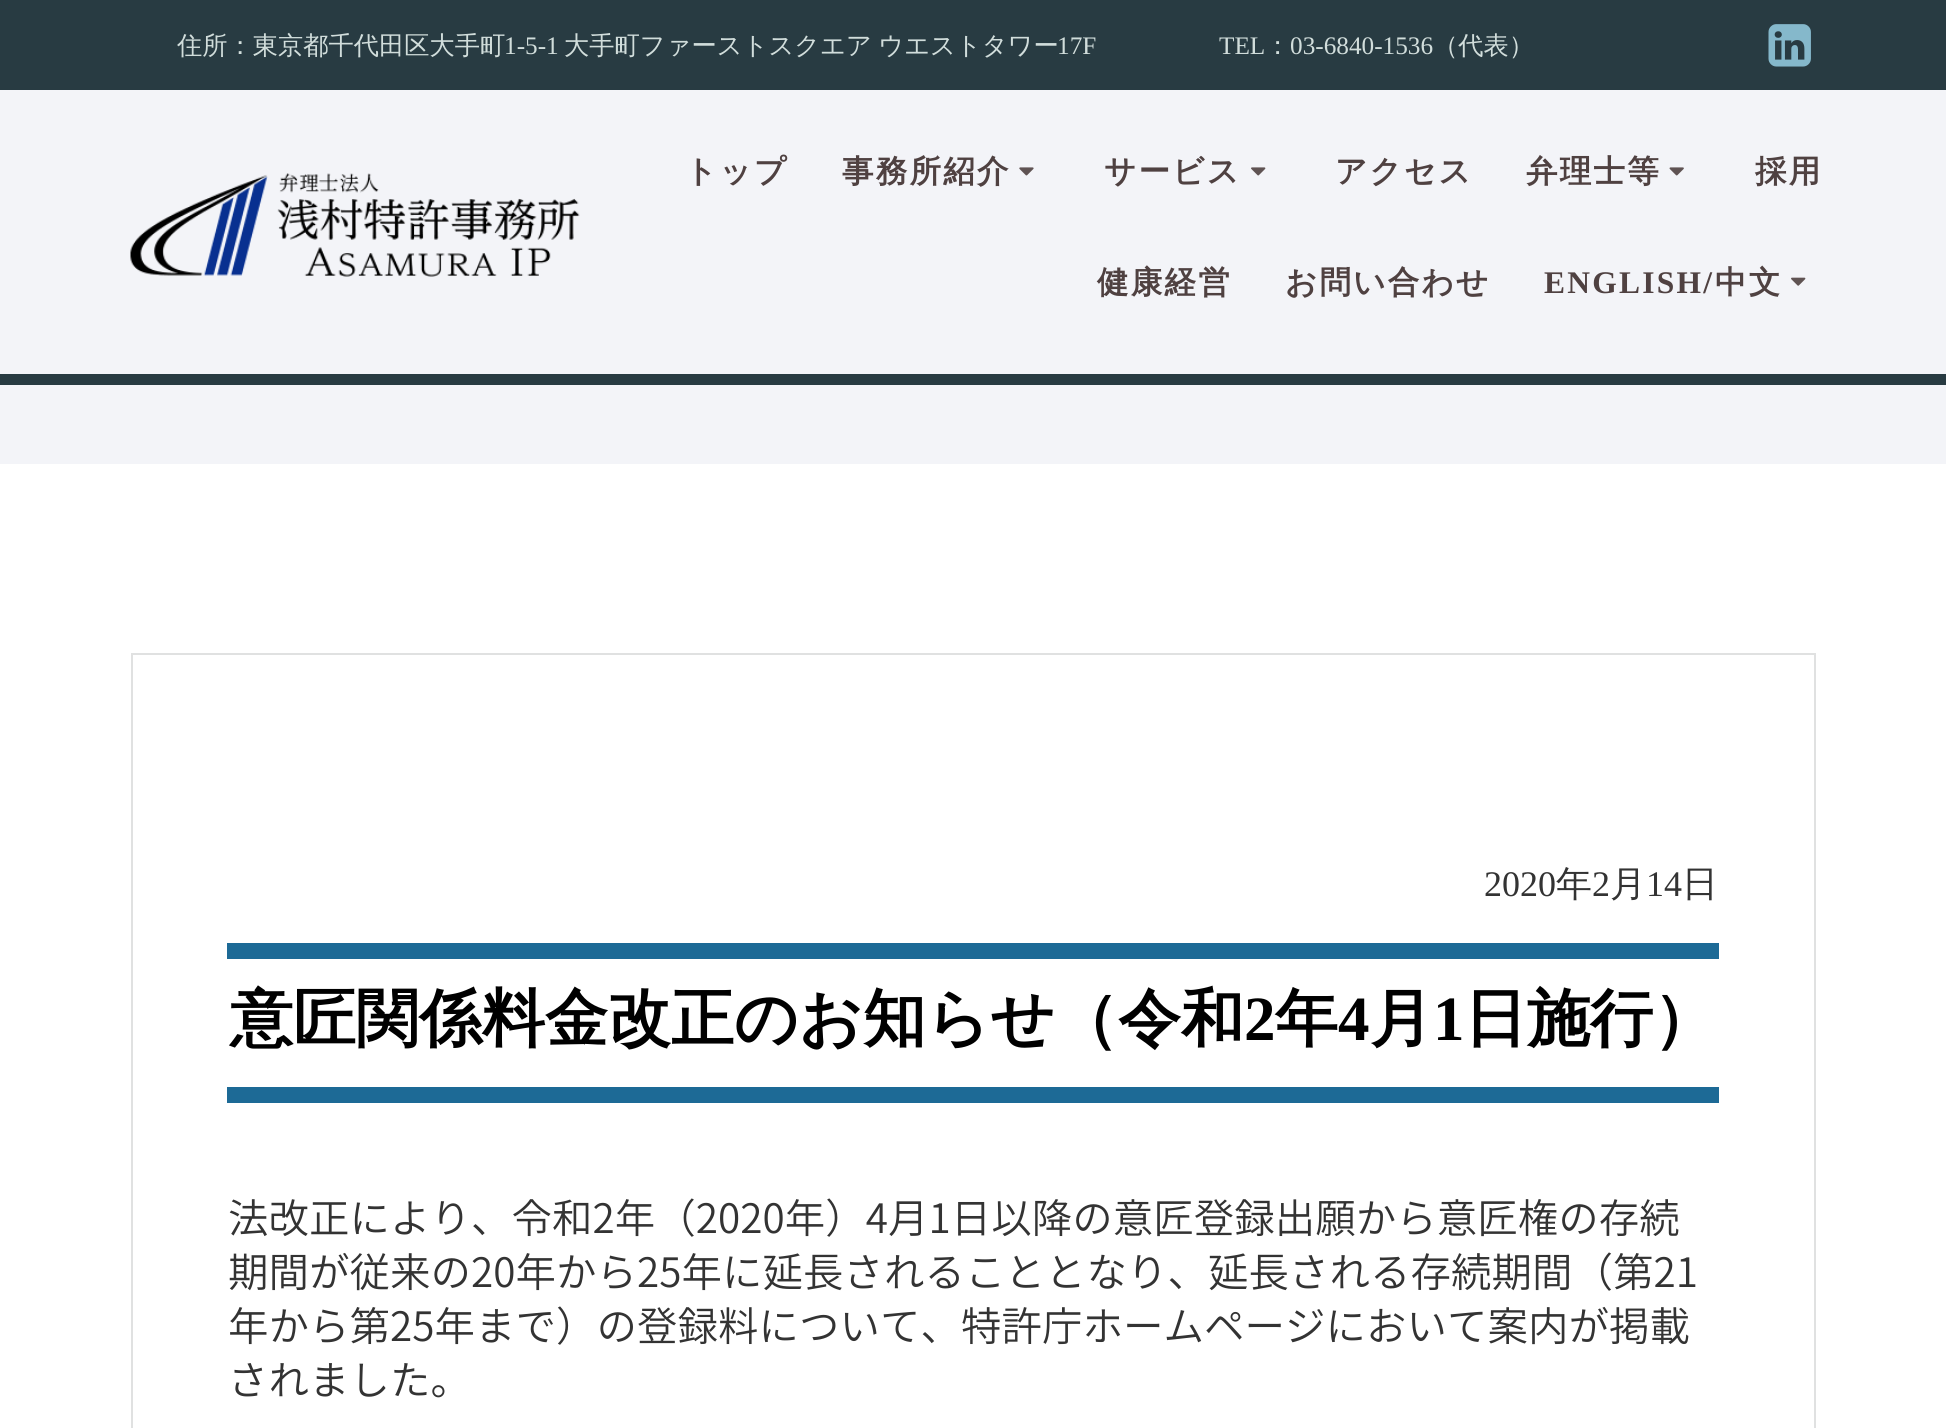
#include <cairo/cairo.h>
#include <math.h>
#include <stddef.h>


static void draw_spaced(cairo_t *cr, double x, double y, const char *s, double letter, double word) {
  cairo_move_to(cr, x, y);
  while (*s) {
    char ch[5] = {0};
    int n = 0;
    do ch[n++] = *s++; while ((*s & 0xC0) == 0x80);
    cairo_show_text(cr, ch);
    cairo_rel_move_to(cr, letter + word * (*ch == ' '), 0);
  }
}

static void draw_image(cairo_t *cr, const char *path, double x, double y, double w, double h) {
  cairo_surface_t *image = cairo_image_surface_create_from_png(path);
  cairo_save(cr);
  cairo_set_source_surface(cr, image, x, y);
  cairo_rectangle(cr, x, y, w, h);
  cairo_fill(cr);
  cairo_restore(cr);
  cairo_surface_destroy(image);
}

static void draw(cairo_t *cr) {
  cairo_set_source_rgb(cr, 1, 1, 1);
  cairo_paint(cr);
  cairo_set_source_rgb(cr, 40 / 255.0, 59 / 255.0, 66 / 255.0);
  cairo_rectangle(cr, 0, 0, 1946, 90);
  cairo_fill(cr);
  draw_image(cr, "images/1.png", 1768, 24, 43, 43);
  cairo_set_source_rgb(cr, 243 / 255.0, 244 / 255.0, 248 / 255.0);
  cairo_rectangle(cr, 0, 90, 1946, 374);
  cairo_fill(cr);
  cairo_set_source_rgb(cr, 40 / 255.0, 59 / 255.0, 66 / 255.0);
  cairo_rectangle(cr, 0, 374, 1946, 11);
  cairo_fill(cr);
  draw_image(cr, "images/2.png", 130, 173, 450, 104);
  draw_image(cr, "images/3.png", 1019, 167, 15, 9);
  draw_image(cr, "images/4.png", 1251, 167, 15, 9);
  draw_image(cr, "images/5.png", 1669, 167, 15, 9);
  draw_image(cr, "images/6.png", 1791, 277, 15, 9);
  cairo_rectangle(cr, 132, 654, 1683, 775);
  cairo_set_source_rgb(cr, 224 / 255.0, 225 / 255.0, 225 / 255.0);
  cairo_stroke(cr);
  cairo_set_source_rgb(cr, 29 / 255.0, 106 / 255.0, 150 / 255.0);
  cairo_rectangle(cr, 227, 943, 1492, 16);
  cairo_fill(cr);
  cairo_rectangle(cr, 227, 1087, 1492, 16);
  cairo_fill(cr);
  cairo_select_font_face(cr, "WenQuanYi Zen Hei Medium", CAIRO_FONT_SLANT_NORMAL, CAIRO_FONT_WEIGHT_NORMAL);
  cairo_set_font_size(cr, 25.25);
  cairo_set_source_rgb(cr, 209 / 255.0, 221 / 255.0, 219 / 255.0);
  cairo_move_to(cr, 177, 54);
  cairo_show_text(cr, "住所：東京都千代田区大手町");
  cairo_select_font_face(cr, "Liberation Serif", CAIRO_FONT_SLANT_NORMAL, CAIRO_FONT_WEIGHT_NORMAL);
  cairo_move_to(cr, 504, 54);
  cairo_show_text(cr, "1-5-1");
  cairo_select_font_face(cr, "WenQuanYi Zen Hei Medium", CAIRO_FONT_SLANT_NORMAL, CAIRO_FONT_WEIGHT_NORMAL);
  draw_spaced(cr, 564, 54, "大手町ファーストスクエア ウエストタワー", 0, -1);
  cairo_select_font_face(cr, "Liberation Serif", CAIRO_FONT_SLANT_NORMAL, CAIRO_FONT_WEIGHT_NORMAL);
  cairo_move_to(cr, 1057, 54);
  cairo_show_text(cr, "17F");
  cairo_move_to(cr, 1219, 54);
  cairo_show_text(cr, "TEL");
  cairo_select_font_face(cr, "WenQuanYi Zen Hei Medium", CAIRO_FONT_SLANT_NORMAL, CAIRO_FONT_WEIGHT_NORMAL);
  cairo_move_to(cr, 1265, 54);
  cairo_show_text(cr, "：");
  cairo_select_font_face(cr, "Liberation Serif", CAIRO_FONT_SLANT_NORMAL, CAIRO_FONT_WEIGHT_NORMAL);
  cairo_move_to(cr, 1290, 54);
  cairo_show_text(cr, "03-6840-1536");
  cairo_select_font_face(cr, "WenQuanYi Zen Hei Medium", CAIRO_FONT_SLANT_NORMAL, CAIRO_FONT_WEIGHT_NORMAL);
  cairo_move_to(cr, 1433, 54);
  cairo_show_text(cr, "（代表）");
  cairo_select_font_face(cr, "WenQuanYi Zen Hei", CAIRO_FONT_SLANT_NORMAL, CAIRO_FONT_WEIGHT_BOLD);
  cairo_set_font_size(cr, 31.5);
  cairo_set_source_rgb(cr, 79 / 255.0, 65 / 255.0, 65 / 255.0);
  draw_spaced(cr, 685, 182, "トップ", 2.25, 0);
  draw_spaced(cr, 842, 182, "事務所紹介", 2.25, 0);
  draw_spaced(cr, 1104, 182, "サービス", 2.25, 0);
  draw_spaced(cr, 1335, 182, "アクセス", 2.25, 0);
  draw_spaced(cr, 1526, 182, "弁理士等", 2.25, 0);
  draw_spaced(cr, 1755, 182, "採用", 2.25, 0);
  draw_spaced(cr, 1097, 293, "健康経営", 2.25, 0);
  draw_spaced(cr, 1285, 293, "お問い合わせ", 2.25, 0);
  cairo_select_font_face(cr, "Liberation Serif", CAIRO_FONT_SLANT_NORMAL, CAIRO_FONT_WEIGHT_BOLD);
  draw_spaced(cr, 1544, 293, "ENGLISH/", 2.25, 0);
  cairo_select_font_face(cr, "WenQuanYi Zen Hei", CAIRO_FONT_SLANT_NORMAL, CAIRO_FONT_WEIGHT_BOLD);
  draw_spaced(cr, 1715, 293, "中文", 2.25, 0);
  cairo_select_font_face(cr, "Liberation Serif", CAIRO_FONT_SLANT_NORMAL, CAIRO_FONT_WEIGHT_NORMAL);
  cairo_set_font_size(cr, 36);
  cairo_set_source_rgb(cr, 51 / 255.0, 51 / 255.0, 51 / 255.0);
  cairo_move_to(cr, 1484, 896);
  cairo_show_text(cr, "2020");
  cairo_select_font_face(cr, "WenQuanYi Zen Hei Medium", CAIRO_FONT_SLANT_NORMAL, CAIRO_FONT_WEIGHT_NORMAL);
  cairo_move_to(cr, 1556, 896);
  cairo_show_text(cr, "年");
  cairo_select_font_face(cr, "Liberation Serif", CAIRO_FONT_SLANT_NORMAL, CAIRO_FONT_WEIGHT_NORMAL);
  cairo_move_to(cr, 1592, 896);
  cairo_show_text(cr, "2");
  cairo_select_font_face(cr, "WenQuanYi Zen Hei Medium", CAIRO_FONT_SLANT_NORMAL, CAIRO_FONT_WEIGHT_NORMAL);
  cairo_move_to(cr, 1610, 896);
  cairo_show_text(cr, "月");
  cairo_select_font_face(cr, "Liberation Serif", CAIRO_FONT_SLANT_NORMAL, CAIRO_FONT_WEIGHT_NORMAL);
  cairo_move_to(cr, 1646, 896);
  cairo_show_text(cr, "14");
  cairo_select_font_face(cr, "WenQuanYi Zen Hei Medium", CAIRO_FONT_SLANT_NORMAL, CAIRO_FONT_WEIGHT_NORMAL);
  cairo_move_to(cr, 1682, 896);
  cairo_show_text(cr, "日");
  cairo_select_font_face(cr, "WenQuanYi Zen Hei", CAIRO_FONT_SLANT_NORMAL, CAIRO_FONT_WEIGHT_BOLD);
  cairo_set_font_size(cr, 63);
  cairo_set_source_rgb(cr, 0, 0, 0);
  cairo_move_to(cr, 230, 1040);
  cairo_show_text(cr, "意匠関係料金改正のお知らせ（令和");
  cairo_select_font_face(cr, "Liberation Serif", CAIRO_FONT_SLANT_NORMAL, CAIRO_FONT_WEIGHT_BOLD);
  cairo_move_to(cr, 1244, 1040);
  cairo_show_text(cr, "2");
  cairo_select_font_face(cr, "WenQuanYi Zen Hei", CAIRO_FONT_SLANT_NORMAL, CAIRO_FONT_WEIGHT_BOLD);
  cairo_move_to(cr, 1275, 1040);
  cairo_show_text(cr, "年");
  cairo_select_font_face(cr, "Liberation Serif", CAIRO_FONT_SLANT_NORMAL, CAIRO_FONT_WEIGHT_BOLD);
  cairo_move_to(cr, 1338, 1040);
  cairo_show_text(cr, "4");
  cairo_select_font_face(cr, "WenQuanYi Zen Hei", CAIRO_FONT_SLANT_NORMAL, CAIRO_FONT_WEIGHT_BOLD);
  cairo_move_to(cr, 1370, 1040);
  cairo_show_text(cr, "月");
  cairo_select_font_face(cr, "Liberation Serif", CAIRO_FONT_SLANT_NORMAL, CAIRO_FONT_WEIGHT_BOLD);
  cairo_move_to(cr, 1433, 1040);
  cairo_show_text(cr, "1");
  cairo_select_font_face(cr, "WenQuanYi Zen Hei", CAIRO_FONT_SLANT_NORMAL, CAIRO_FONT_WEIGHT_BOLD);
  cairo_move_to(cr, 1464, 1040);
  cairo_show_text(cr, "日施行）");
  cairo_select_font_face(cr, "Noto Sans JP Light", CAIRO_FONT_SLANT_NORMAL, CAIRO_FONT_WEIGHT_NORMAL);
  cairo_set_font_size(cr, 40.5);
  cairo_set_source_rgb(cr, 51 / 255.0, 51 / 255.0, 51 / 255.0);
  cairo_move_to(cr, 228, 1233);
  cairo_show_text(cr, "法改正により、令和2年（2020年）4月1日以降の意匠登録出願から意匠権の存続");
  cairo_move_to(cr, 228, 1287);
  cairo_show_text(cr, "期間が従来の20年から25年に延長されることとなり、延長される存続期間（第21");
  cairo_move_to(cr, 228, 1341);
  cairo_show_text(cr, "年から第25年まで）の登録料について、特許庁ホームページにおいて案内が掲載");
  cairo_move_to(cr, 228, 1395);
  cairo_show_text(cr, "されました。");
}

int main(void) {
  cairo_surface_t *surface = cairo_image_surface_create(CAIRO_FORMAT_RGB24, 1946, 1428);
  cairo_t *cr = cairo_create(surface);
  cairo_font_options_t *options = cairo_font_options_create();
  cairo_font_options_set_hint_metrics(options, CAIRO_HINT_METRICS_OFF);
  cairo_font_options_set_hint_style(options, CAIRO_HINT_STYLE_NONE);
  cairo_set_font_options(cr, options);
  cairo_set_miter_limit(cr, 4);
  draw(cr);
  cairo_surface_write_to_png(surface, "out.png");
  cairo_font_options_destroy(options);
  cairo_destroy(cr);
  cairo_surface_destroy(surface);
  return 0;
}
